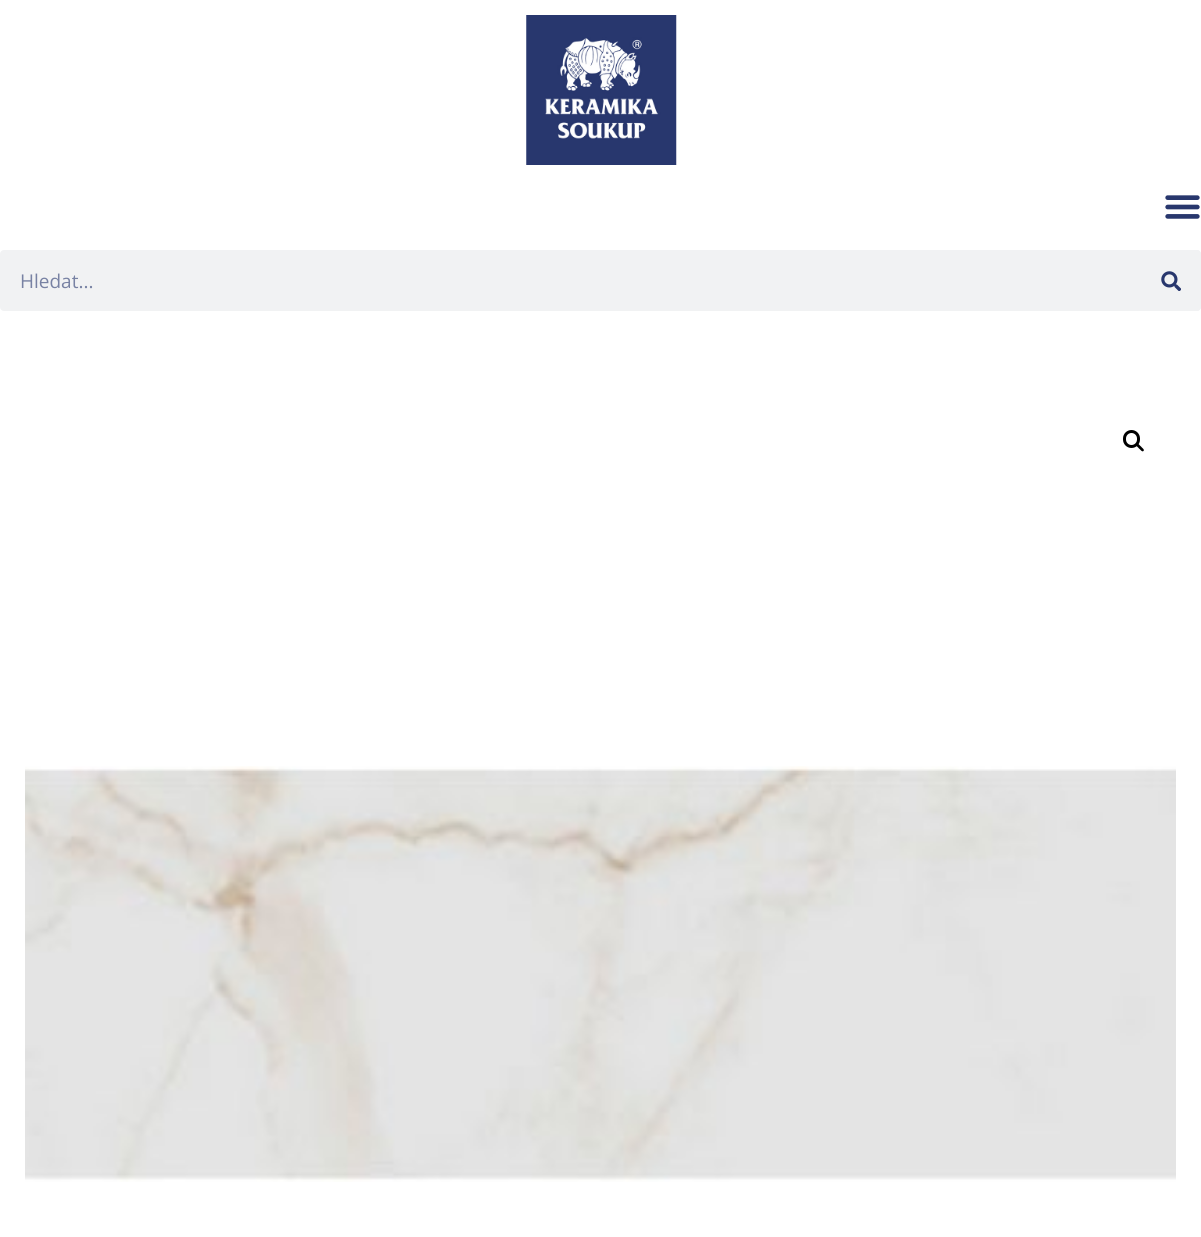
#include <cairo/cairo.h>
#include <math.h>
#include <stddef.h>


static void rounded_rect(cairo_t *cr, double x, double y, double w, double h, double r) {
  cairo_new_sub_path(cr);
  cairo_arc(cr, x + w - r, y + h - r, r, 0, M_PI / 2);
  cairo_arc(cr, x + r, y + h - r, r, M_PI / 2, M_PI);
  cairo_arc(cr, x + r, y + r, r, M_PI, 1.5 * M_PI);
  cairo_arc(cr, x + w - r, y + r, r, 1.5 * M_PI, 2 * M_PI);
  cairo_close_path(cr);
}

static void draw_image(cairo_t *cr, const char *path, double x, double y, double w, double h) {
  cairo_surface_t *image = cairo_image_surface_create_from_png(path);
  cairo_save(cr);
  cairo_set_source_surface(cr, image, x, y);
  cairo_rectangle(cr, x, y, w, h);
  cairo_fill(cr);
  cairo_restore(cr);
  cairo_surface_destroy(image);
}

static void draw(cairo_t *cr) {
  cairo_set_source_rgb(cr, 1, 1, 1);
  cairo_paint(cr);
  draw_image(cr, "images/1.png", 526, 15, 151, 150);
  draw_image(cr, "images/2.png", 1165, 195, 35, 24);
  cairo_set_source_rgb(cr, 241 / 255.0, 242 / 255.0, 243 / 255.0);
  rounded_rect(cr, 0, 250, 1201, 61, 4);
  cairo_fill(cr);
  cairo_new_path(cr);
  cairo_move_to(cr, 1140, 250);
  cairo_line_to(cr, 1197, 250);
  cairo_curve_to(cr, 1199, 250, 1201, 252, 1201, 254);
  cairo_line_to(cr, 1201, 307);
  cairo_curve_to(cr, 1201, 309, 1199, 311, 1197, 311);
  cairo_line_to(cr, 1140, 311);
  cairo_close_path(cr);
  cairo_fill(cr);
  draw_image(cr, "images/3.png", 1161, 271, 20, 20);
  rounded_rect(cr, 1124.5, 431.5, 14, 15, 7);
  cairo_set_source_rgb(cr, 0, 0, 0);
  cairo_set_line_width(cr, 3);
  cairo_stroke(cr);
  cairo_new_path(cr);
  cairo_move_to(cr, 1136.5, 444);
  cairo_curve_to(cr, 1138, 442.5, 1140, 446, 1141, 446.5);
  cairo_curve_to(cr, 1141.5, 447.5, 1145, 449.5, 1143.5, 451);
  cairo_curve_to(cr, 1142, 452.5, 1140, 449, 1139, 448.5);
  cairo_curve_to(cr, 1138.5, 447.5, 1135, 445.5, 1136.5, 444);
  cairo_close_path(cr);
  cairo_fill(cr);
  draw_image(cr, "images/4.png", 25, 766, 1151, 416);
  cairo_select_font_face(cr, "Open Sans", CAIRO_FONT_SLANT_NORMAL, CAIRO_FONT_WEIGHT_NORMAL);
  cairo_set_font_size(cr, 19);
  cairo_set_source_rgb(cr, 120 / 255.0, 130 / 255.0, 163 / 255.0);
  cairo_move_to(cr, 20, 288);
  cairo_show_text(cr, "Hledat...");
}

int main(void) {
  cairo_surface_t *surface = cairo_image_surface_create(CAIRO_FORMAT_RGB24, 1201, 1237);
  cairo_t *cr = cairo_create(surface);
  cairo_font_options_t *options = cairo_font_options_create();
  cairo_font_options_set_hint_metrics(options, CAIRO_HINT_METRICS_OFF);
  cairo_font_options_set_hint_style(options, CAIRO_HINT_STYLE_NONE);
  cairo_set_font_options(cr, options);
  cairo_set_miter_limit(cr, 4);
  draw(cr);
  cairo_surface_write_to_png(surface, "out.png");
  cairo_font_options_destroy(options);
  cairo_destroy(cr);
  cairo_surface_destroy(surface);
  return 0;
}
